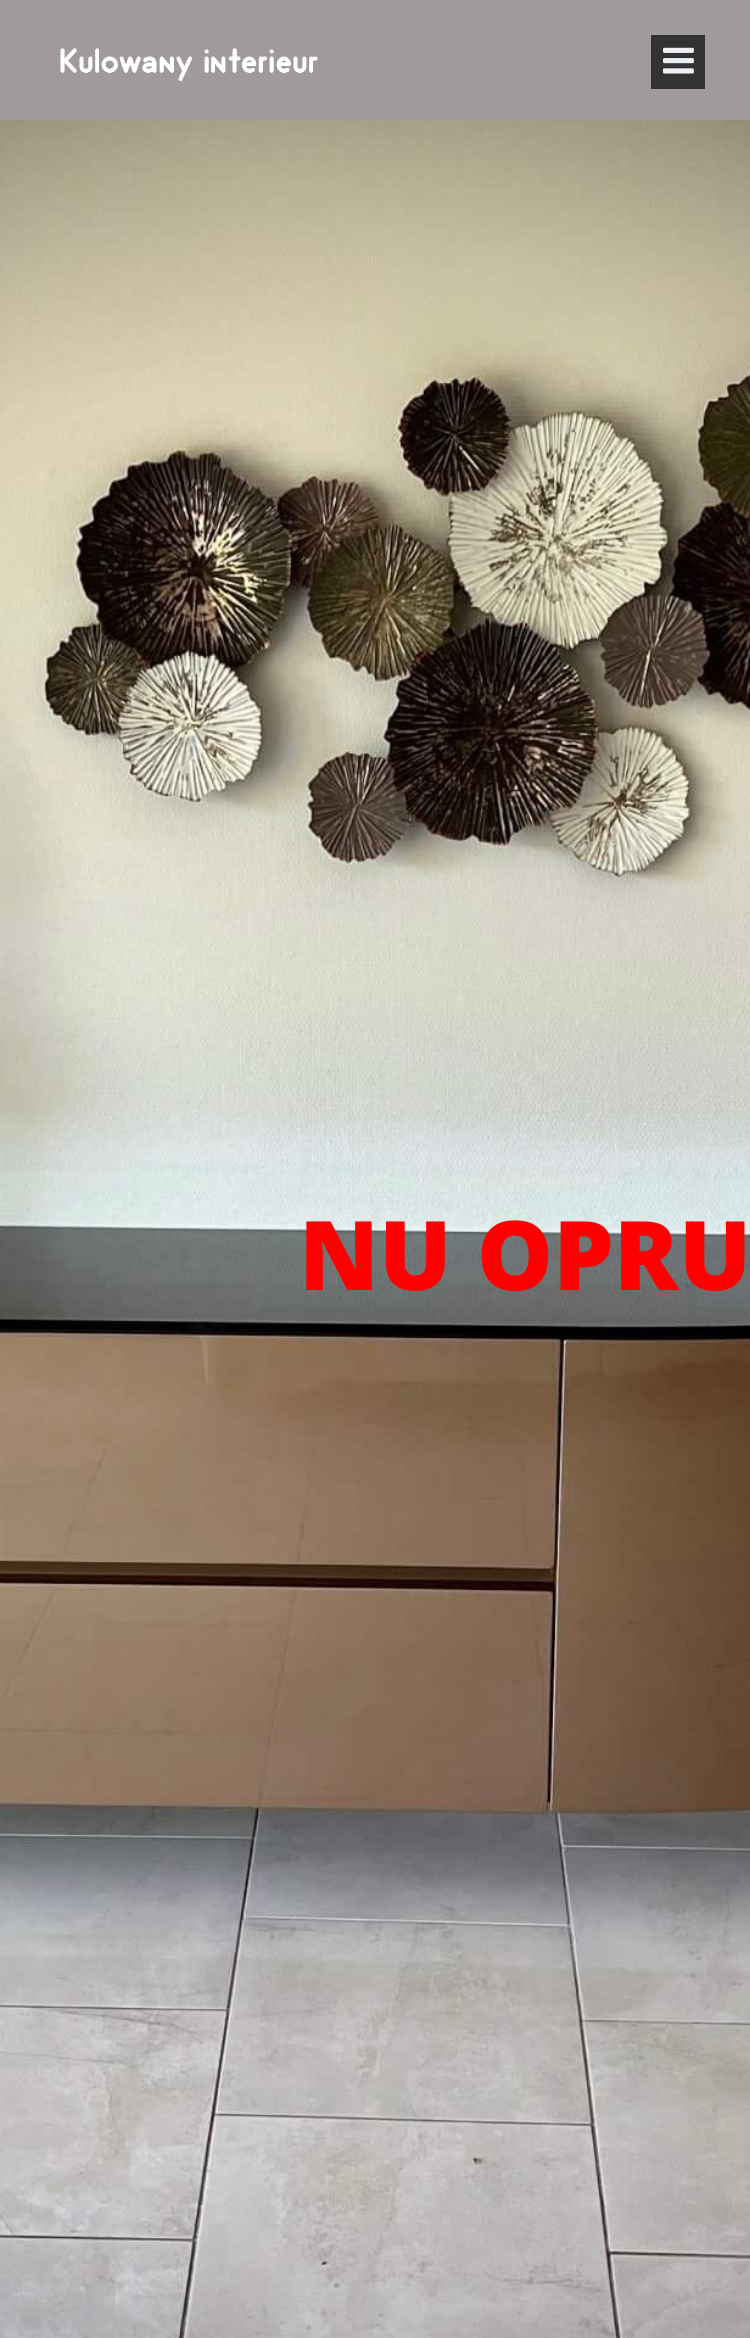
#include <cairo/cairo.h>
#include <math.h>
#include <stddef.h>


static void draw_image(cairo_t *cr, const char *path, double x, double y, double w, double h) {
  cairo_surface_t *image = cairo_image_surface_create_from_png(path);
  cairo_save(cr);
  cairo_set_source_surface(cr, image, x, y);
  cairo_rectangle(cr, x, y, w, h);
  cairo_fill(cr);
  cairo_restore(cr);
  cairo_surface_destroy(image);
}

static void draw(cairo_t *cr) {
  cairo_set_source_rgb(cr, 160 / 255.0, 154 / 255.0, 154 / 255.0);
  cairo_paint(cr);
  draw_image(cr, "images/1.png", 60, 48, 258, 33);
  cairo_set_source_rgb(cr, 51 / 255.0, 51 / 255.0, 51 / 255.0);
  cairo_rectangle(cr, 651, 35, 54, 54);
  cairo_fill(cr);
  draw_image(cr, "images/2.png", 663, 47, 31, 27);
  draw_image(cr, "images/3.png", 0, 120, 750, 2218);
  cairo_select_font_face(cr, "Open Sans ExtraBold", CAIRO_FONT_SLANT_NORMAL, CAIRO_FONT_WEIGHT_NORMAL);
  cairo_set_font_size(cr, 96);
  cairo_set_source_rgb(cr, 1, 0, 0);
  cairo_move_to(cr, 299, 1290);
  cairo_show_text(cr, "NU OPRU");
}

int main(void) {
  cairo_surface_t *surface = cairo_image_surface_create(CAIRO_FORMAT_RGB24, 750, 2338);
  cairo_t *cr = cairo_create(surface);
  cairo_font_options_t *options = cairo_font_options_create();
  cairo_font_options_set_hint_metrics(options, CAIRO_HINT_METRICS_OFF);
  cairo_font_options_set_hint_style(options, CAIRO_HINT_STYLE_NONE);
  cairo_set_font_options(cr, options);
  cairo_set_miter_limit(cr, 4);
  draw(cr);
  cairo_surface_write_to_png(surface, "out.png");
  cairo_font_options_destroy(options);
  cairo_destroy(cr);
  cairo_surface_destroy(surface);
  return 0;
}
